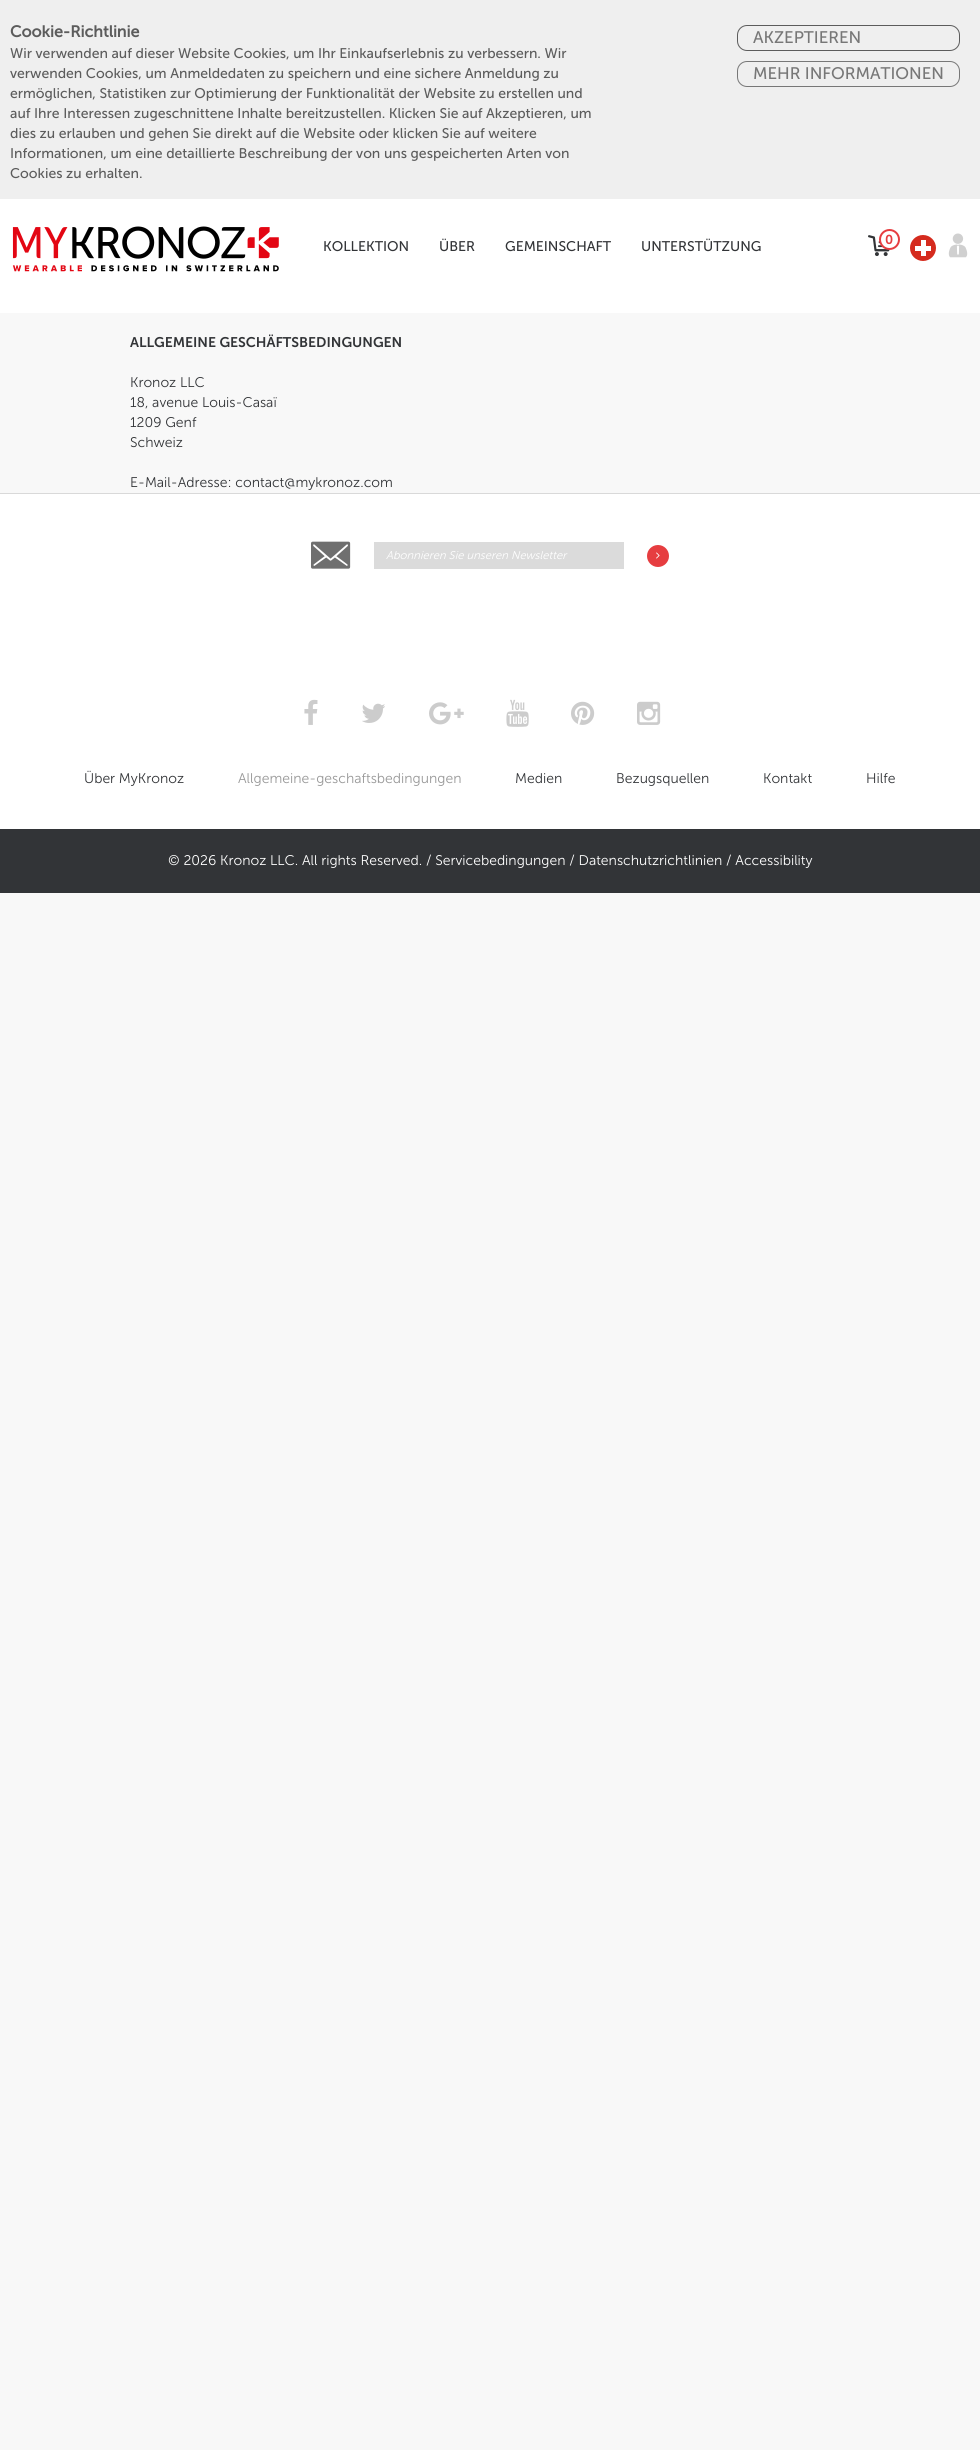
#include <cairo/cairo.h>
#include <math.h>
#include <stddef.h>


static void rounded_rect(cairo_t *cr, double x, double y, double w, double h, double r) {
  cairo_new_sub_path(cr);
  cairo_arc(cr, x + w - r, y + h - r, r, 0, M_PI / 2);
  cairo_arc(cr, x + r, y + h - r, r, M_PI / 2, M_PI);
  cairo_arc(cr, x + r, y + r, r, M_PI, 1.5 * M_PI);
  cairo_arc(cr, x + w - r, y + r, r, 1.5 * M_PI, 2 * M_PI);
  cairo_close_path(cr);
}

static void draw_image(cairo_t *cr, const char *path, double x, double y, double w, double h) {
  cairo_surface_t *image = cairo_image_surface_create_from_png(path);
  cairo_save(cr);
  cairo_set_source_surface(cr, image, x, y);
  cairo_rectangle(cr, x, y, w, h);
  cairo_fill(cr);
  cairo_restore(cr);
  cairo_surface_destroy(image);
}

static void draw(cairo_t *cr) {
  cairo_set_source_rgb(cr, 248 / 255.0, 248 / 255.0, 248 / 255.0);
  cairo_paint(cr);
  cairo_set_source_rgb(cr, 239 / 255.0, 239 / 255.0, 239 / 255.0);
  cairo_rectangle(cr, 0, 0, 980, 199);
  cairo_fill(cr);
  rounded_rect(cr, 737.5, 25.5, 222, 25, 9.5);
  cairo_set_source_rgb(cr, 92 / 255.0, 92 / 255.0, 92 / 255.0);
  cairo_set_line_width(cr, 1);
  cairo_stroke(cr);
  rounded_rect(cr, 737.5, 61.5, 222, 25, 9.5);
  cairo_set_source_rgb(cr, 119 / 255.0, 119 / 255.0, 119 / 255.0);
  cairo_stroke(cr);
  cairo_set_source_rgb(cr, 1, 1, 1);
  cairo_rectangle(cr, 0, 199, 980, 114);
  cairo_fill(cr);
  draw_image(cr, "images/1.png", 12, 226, 267, 46);
  draw_image(cr, "images/2.png", 868, 235, 22, 22);
  cairo_arc(cr, 889.5, 239.5, 9.5, 0, 2 * M_PI);
  cairo_fill_preserve(cr);
  cairo_set_source_rgb(cr, 230 / 255.0, 61 / 255.0, 64 / 255.0);
  cairo_set_line_width(cr, 2);
  cairo_stroke(cr);
  cairo_set_source_rgb(cr, 213 / 255.0, 43 / 255.0, 30 / 255.0);
  cairo_arc(cr, 923, 248, 13, 0, 2 * M_PI);
  cairo_fill(cr);
  cairo_set_source_rgb(cr, 1, 1, 1);
  cairo_rectangle(cr, 915, 246, 16, 5);
  cairo_fill(cr);
  cairo_rectangle(cr, 921, 240, 5, 16);
  cairo_fill(cr);
  draw_image(cr, "images/3.png", 948, 233, 20, 25);
  cairo_rectangle(cr, 0, 494, 980, 335);
  cairo_fill(cr);
  cairo_set_source_rgb(cr, 217 / 255.0, 217 / 255.0, 217 / 255.0);
  cairo_rectangle(cr, 0, 493, 980, 1);
  cairo_fill(cr);
  draw_image(cr, "images/4.png", 311, 541, 40, 28);
  cairo_set_source_rgb(cr, 219 / 255.0, 219 / 255.0, 219 / 255.0);
  cairo_rectangle(cr, 374, 542, 250, 27);
  cairo_fill(cr);
  cairo_set_source_rgb(cr, 230 / 255.0, 61 / 255.0, 64 / 255.0);
  cairo_arc(cr, 658, 556, 11, 0, 2 * M_PI);
  cairo_fill(cr);
  draw_image(cr, "images/5.png", 656, 552, 4, 7);
  draw_image(cr, "images/6.png", 304, 699, 14, 26);
  draw_image(cr, "images/7.png", 362, 703, 23, 20);
  draw_image(cr, "images/8.png", 429, 702, 35, 23);
  draw_image(cr, "images/9.png", 506, 699, 23, 28);
  draw_image(cr, "images/10.png", 571, 701, 24, 24);
  draw_image(cr, "images/11.png", 637, 701, 24, 24);
  cairo_set_source_rgb(cr, 50 / 255.0, 52 / 255.0, 55 / 255.0);
  cairo_rectangle(cr, 0, 829, 980, 64);
  cairo_fill(cr);
  cairo_select_font_face(cr, "Museo Sans", CAIRO_FONT_SLANT_NORMAL, CAIRO_FONT_WEIGHT_BOLD);
  cairo_set_font_size(cr, 16);
  cairo_set_source_rgb(cr, 92 / 255.0, 92 / 255.0, 92 / 255.0);
  cairo_move_to(cr, 10, 37);
  cairo_show_text(cr, "Cookie-Richtlinie");
  cairo_select_font_face(cr, "Museo Sans", CAIRO_FONT_SLANT_NORMAL, CAIRO_FONT_WEIGHT_NORMAL);
  cairo_set_font_size(cr, 14);
  cairo_move_to(cr, 10, 58);
  cairo_show_text(cr, "Wir verwenden auf dieser Website Cookies, um Ihr Einkaufserlebnis zu verbessern. Wir");
  cairo_move_to(cr, 10, 78);
  cairo_show_text(cr, "verwenden Cookies, um Anmeldedaten zu speichern und eine sichere Anmeldung zu");
  cairo_move_to(cr, 10, 98);
  cairo_show_text(cr, "ermöglichen, Statistiken zur Optimierung der Funktionalität der Website zu erstellen und");
  cairo_move_to(cr, 10, 118);
  cairo_show_text(cr, "auf Ihre Interessen zugeschnittene Inhalte bereitzustellen. Klicken Sie auf Akzeptieren, um");
  cairo_move_to(cr, 10, 138);
  cairo_show_text(cr, "dies zu erlauben und gehen Sie direkt auf die Website oder klicken Sie auf weitere");
  cairo_move_to(cr, 10, 158);
  cairo_show_text(cr, "Informationen, um eine detaillierte Beschreibung der von uns gespeicherten Arten von");
  cairo_move_to(cr, 10, 178);
  cairo_show_text(cr, "Cookies zu erhalten.");
  cairo_set_font_size(cr, 16.75);
  cairo_set_source_rgb(cr, 119 / 255.0, 119 / 255.0, 119 / 255.0);
  cairo_move_to(cr, 753, 43);
  cairo_show_text(cr, "AKZEPTIEREN");
  cairo_move_to(cr, 753, 79);
  cairo_show_text(cr, "MEHR INFORMATIONEN");
  cairo_set_font_size(cr, 14);
  cairo_set_source_rgb(cr, 50 / 255.0, 52 / 255.0, 55 / 255.0);
  cairo_move_to(cr, 323, 251);
  cairo_show_text(cr, "KOLLEKTION");
  cairo_move_to(cr, 439, 251);
  cairo_show_text(cr, "ÜBER");
  cairo_move_to(cr, 505, 251);
  cairo_show_text(cr, "GEMEINSCHAFT");
  cairo_move_to(cr, 641, 251);
  cairo_show_text(cr, "UNTERSTÜTZUNG");
  cairo_select_font_face(cr, "Museo Sans SemiBold", CAIRO_FONT_SLANT_NORMAL, CAIRO_FONT_WEIGHT_NORMAL);
  cairo_set_font_size(cr, 13);
  cairo_set_source_rgb(cr, 230 / 255.0, 61 / 255.0, 64 / 255.0);
  cairo_move_to(cr, 885, 244);
  cairo_show_text(cr, "0");
  cairo_set_font_size(cr, 14);
  cairo_set_source_rgb(cr, 50 / 255.0, 52 / 255.0, 55 / 255.0);
  cairo_move_to(cr, 130, 347);
  cairo_show_text(cr, "ALLGEMEINE GESCHÄFTSBEDINGUNGEN");
  cairo_select_font_face(cr, "Museo Sans Light", CAIRO_FONT_SLANT_NORMAL, CAIRO_FONT_WEIGHT_NORMAL);
  cairo_move_to(cr, 130, 387);
  cairo_show_text(cr, "Kronoz LLC");
  cairo_move_to(cr, 130, 407);
  cairo_show_text(cr, "18, avenue Louis-Casaï");
  cairo_move_to(cr, 130, 427);
  cairo_show_text(cr, "1209 Genf");
  cairo_move_to(cr, 130, 447);
  cairo_show_text(cr, "Schweiz");
  cairo_move_to(cr, 130, 487);
  cairo_show_text(cr, "E-Mail-Adresse: contact@mykronoz.com");
  cairo_select_font_face(cr, "Museo Sans Light", CAIRO_FONT_SLANT_ITALIC, CAIRO_FONT_WEIGHT_NORMAL);
  cairo_set_font_size(cr, 11.25);
  cairo_set_source_rgb(cr, 1, 1, 1);
  cairo_move_to(cr, 386, 559);
  cairo_show_text(cr, "Abonnieren Sie unseren Newsletter");
  cairo_select_font_face(cr, "Museo Sans Light", CAIRO_FONT_SLANT_NORMAL, CAIRO_FONT_WEIGHT_NORMAL);
  cairo_set_font_size(cr, 14);
  cairo_set_source_rgb(cr, 50 / 255.0, 52 / 255.0, 55 / 255.0);
  cairo_move_to(cr, 84, 783);
  cairo_show_text(cr, "Über MyKronoz");
  cairo_set_source_rgb(cr, 152 / 255.0, 152 / 255.0, 152 / 255.0);
  cairo_move_to(cr, 238, 783);
  cairo_show_text(cr, "Allgemeine-geschaftsbedingungen");
  cairo_set_source_rgb(cr, 50 / 255.0, 52 / 255.0, 55 / 255.0);
  cairo_move_to(cr, 515, 783);
  cairo_show_text(cr, "Medien");
  cairo_move_to(cr, 616, 783);
  cairo_show_text(cr, "Bezugsquellen");
  cairo_move_to(cr, 763, 783);
  cairo_show_text(cr, "Kontakt");
  cairo_move_to(cr, 866, 783);
  cairo_show_text(cr, "Hilfe");
  cairo_set_source_rgb(cr, 1, 1, 1);
  cairo_move_to(cr, 168, 865);
  cairo_show_text(cr, "© 2026 Kronoz LLC. All rights Reserved. / Servicebedingungen / Datenschutzrichtlinien / Accessibility");
}

int main(void) {
  cairo_surface_t *surface = cairo_image_surface_create(CAIRO_FORMAT_RGB24, 980, 2450);
  cairo_t *cr = cairo_create(surface);
  cairo_font_options_t *options = cairo_font_options_create();
  cairo_font_options_set_hint_metrics(options, CAIRO_HINT_METRICS_OFF);
  cairo_font_options_set_hint_style(options, CAIRO_HINT_STYLE_NONE);
  cairo_set_font_options(cr, options);
  cairo_set_miter_limit(cr, 4);
  draw(cr);
  cairo_surface_write_to_png(surface, "out.png");
  cairo_font_options_destroy(options);
  cairo_destroy(cr);
  cairo_surface_destroy(surface);
  return 0;
}
